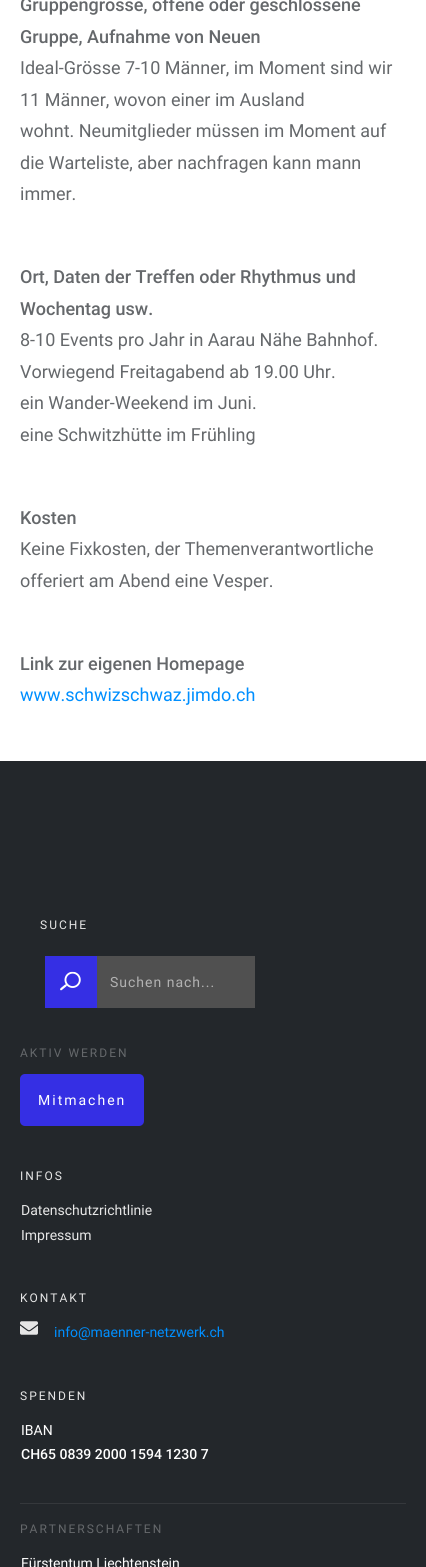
#include <cairo/cairo.h>
#include <math.h>
#include <stddef.h>


static void draw_spaced(cairo_t *cr, double x, double y, const char *s, double letter, double word) {
  cairo_move_to(cr, x, y);
  while (*s) {
    char ch[5] = {0};
    int n = 0;
    do ch[n++] = *s++; while ((*s & 0xC0) == 0x80);
    cairo_show_text(cr, ch);
    cairo_rel_move_to(cr, letter + word * (*ch == ' '), 0);
  }
}

static void rounded_rect(cairo_t *cr, double x, double y, double w, double h, double r) {
  cairo_new_sub_path(cr);
  cairo_arc(cr, x + w - r, y + h - r, r, 0, M_PI / 2);
  cairo_arc(cr, x + r, y + h - r, r, M_PI / 2, M_PI);
  cairo_arc(cr, x + r, y + r, r, M_PI, 1.5 * M_PI);
  cairo_arc(cr, x + w - r, y + r, r, 1.5 * M_PI, 2 * M_PI);
  cairo_close_path(cr);
}

static void draw_image(cairo_t *cr, const char *path, double x, double y, double w, double h) {
  cairo_surface_t *image = cairo_image_surface_create_from_png(path);
  cairo_save(cr);
  cairo_set_source_surface(cr, image, x, y);
  cairo_rectangle(cr, x, y, w, h);
  cairo_fill(cr);
  cairo_restore(cr);
  cairo_surface_destroy(image);
}

static void draw(cairo_t *cr) {
  cairo_set_source_rgb(cr, 1, 1, 1);
  cairo_paint(cr);
  cairo_set_source_rgb(cr, 35 / 255.0, 39 / 255.0, 43 / 255.0);
  cairo_rectangle(cr, 0, 761, 426, 806);
  cairo_fill(cr);
  cairo_set_source_rgb(cr, 53 / 255.0, 47 / 255.0, 228 / 255.0);
  cairo_rectangle(cr, 45, 956, 52, 52);
  cairo_fill(cr);
  draw_image(cr, "images/1.png", 60, 971, 21, 20);
  cairo_set_source_rgb(cr, 80 / 255.0, 80 / 255.0, 80 / 255.0);
  cairo_rectangle(cr, 97, 956, 158, 52);
  cairo_fill(cr);
  cairo_set_source_rgb(cr, 53 / 255.0, 56 / 255.0, 60 / 255.0);
  cairo_rectangle(cr, 20, 1503, 386, 1);
  cairo_fill(cr);
  cairo_set_source_rgb(cr, 53 / 255.0, 47 / 255.0, 228 / 255.0);
  rounded_rect(cr, 20, 1074, 124, 52, 5);
  cairo_fill(cr);
  draw_image(cr, "images/2.png", 20, 1321, 18, 14);
  cairo_select_font_face(cr, "Roboto Medium", CAIRO_FONT_SLANT_NORMAL, CAIRO_FONT_WEIGHT_NORMAL);
  cairo_set_font_size(cr, 18);
  cairo_set_source_rgb(cr, 101 / 255.0, 104 / 255.0, 107 / 255.0);
  cairo_move_to(cr, 20, 11);
  cairo_show_text(cr, "Gruppengrösse, offene oder geschlossene");
  cairo_move_to(cr, 20, 43);
  cairo_show_text(cr, "Gruppe, Aufnahme von Neuen");
  cairo_select_font_face(cr, "Roboto", CAIRO_FONT_SLANT_NORMAL, CAIRO_FONT_WEIGHT_NORMAL);
  cairo_move_to(cr, 20, 74);
  cairo_show_text(cr, "Ideal-Grösse 7-10 Männer, im Moment sind wir");
  cairo_move_to(cr, 20, 106);
  cairo_show_text(cr, "11 Männer, wovon einer im Ausland");
  cairo_move_to(cr, 20, 137);
  cairo_show_text(cr, "wohnt. Neumitglieder müssen im Moment auf");
  cairo_move_to(cr, 20, 169);
  cairo_show_text(cr, "die Warteliste, aber nachfragen kann mann");
  cairo_move_to(cr, 20, 200);
  cairo_show_text(cr, "immer.");
  cairo_select_font_face(cr, "Roboto Medium", CAIRO_FONT_SLANT_NORMAL, CAIRO_FONT_WEIGHT_NORMAL);
  cairo_move_to(cr, 20, 283);
  cairo_show_text(cr, "Ort, Daten der Treffen oder Rhythmus und");
  cairo_move_to(cr, 20, 315);
  cairo_show_text(cr, "Wochentag usw.");
  cairo_select_font_face(cr, "Roboto", CAIRO_FONT_SLANT_NORMAL, CAIRO_FONT_WEIGHT_NORMAL);
  cairo_move_to(cr, 20, 346);
  cairo_show_text(cr, "8-10 Events pro Jahr in Aarau Nähe Bahnhof.");
  cairo_move_to(cr, 20, 378);
  cairo_show_text(cr, "Vorwiegend Freitagabend ab 19.00 Uhr.");
  cairo_move_to(cr, 20, 409);
  cairo_show_text(cr, "ein Wander-Weekend im Juni.");
  cairo_move_to(cr, 20, 441);
  cairo_show_text(cr, "eine Schwitzhütte im Frühling");
  cairo_select_font_face(cr, "Roboto Medium", CAIRO_FONT_SLANT_NORMAL, CAIRO_FONT_WEIGHT_NORMAL);
  cairo_move_to(cr, 20, 524);
  cairo_show_text(cr, "Kosten");
  cairo_select_font_face(cr, "Roboto", CAIRO_FONT_SLANT_NORMAL, CAIRO_FONT_WEIGHT_NORMAL);
  cairo_move_to(cr, 20, 555);
  cairo_show_text(cr, "Keine Fixkosten, der Themenverantwortliche");
  cairo_move_to(cr, 20, 587);
  cairo_show_text(cr, "offeriert am Abend eine Vesper.");
  cairo_select_font_face(cr, "Roboto Medium", CAIRO_FONT_SLANT_NORMAL, CAIRO_FONT_WEIGHT_NORMAL);
  cairo_move_to(cr, 20, 670);
  cairo_show_text(cr, "Link zur eigenen Homepage");
  cairo_select_font_face(cr, "Roboto", CAIRO_FONT_SLANT_NORMAL, CAIRO_FONT_WEIGHT_NORMAL);
  cairo_set_source_rgb(cr, 0, 143 / 255.0, 1);
  cairo_move_to(cr, 20, 701);
  cairo_show_text(cr, "www.schwizschwaz.jimdo.ch");
  cairo_set_font_size(cr, 12);
  cairo_set_source_rgb(cr, 230 / 255.0, 230 / 255.0, 230 / 255.0);
  draw_spaced(cr, 40, 929, "SUCHE", 2, 0);
  cairo_set_font_size(cr, 14);
  cairo_set_source_rgb(cr, 178 / 255.0, 178 / 255.0, 178 / 255.0);
  draw_spaced(cr, 110, 987, "Suchen nach...", 1, 0);
  cairo_set_font_size(cr, 12);
  cairo_set_source_rgb(cr, 101 / 255.0, 104 / 255.0, 107 / 255.0);
  draw_spaced(cr, 20, 1057, "AKTIV WERDEN", 2, 0);
  cairo_set_font_size(cr, 14);
  cairo_set_source_rgb(cr, 1, 1, 1);
  draw_spaced(cr, 38, 1105, "Mitmachen", 2, 0);
  cairo_set_font_size(cr, 12);
  cairo_set_source_rgb(cr, 230 / 255.0, 230 / 255.0, 230 / 255.0);
  draw_spaced(cr, 20, 1180, "INFOS", 2, 0);
  cairo_set_font_size(cr, 14);
  cairo_move_to(cr, 21, 1215);
  cairo_show_text(cr, "Datenschutzrichtlinie");
  cairo_move_to(cr, 21, 1240);
  cairo_show_text(cr, "Impressum");
  cairo_set_font_size(cr, 12);
  draw_spaced(cr, 20, 1302, "KONTAKT", 2, 0);
  cairo_set_font_size(cr, 14);
  cairo_set_source_rgb(cr, 0, 143 / 255.0, 1);
  cairo_move_to(cr, 54, 1337);
  cairo_show_text(cr, "info@maenner-netzwerk.ch");
  cairo_set_font_size(cr, 12);
  cairo_set_source_rgb(cr, 230 / 255.0, 230 / 255.0, 230 / 255.0);
  draw_spaced(cr, 20, 1400, "SPENDEN", 2, 0);
  cairo_set_font_size(cr, 14);
  cairo_set_source_rgb(cr, 1, 1, 1);
  cairo_move_to(cr, 21, 1435);
  cairo_show_text(cr, "IBAN");
  cairo_select_font_face(cr, "Roboto Medium", CAIRO_FONT_SLANT_NORMAL, CAIRO_FONT_WEIGHT_NORMAL);
  cairo_move_to(cr, 21, 1459);
  cairo_show_text(cr, "CH65 0839 2000 1594 1230 7");
  cairo_select_font_face(cr, "Roboto", CAIRO_FONT_SLANT_NORMAL, CAIRO_FONT_WEIGHT_NORMAL);
  cairo_set_font_size(cr, 12);
  cairo_set_source_rgb(cr, 101 / 255.0, 104 / 255.0, 107 / 255.0);
  draw_spaced(cr, 20, 1533, "PARTNERSCHAFTEN", 2, 0);
  cairo_set_font_size(cr, 14);
  cairo_set_source_rgb(cr, 1, 1, 1);
  cairo_move_to(cr, 21, 1568);
  cairo_show_text(cr, "Fürstentum Liechtenstein");
}

int main(void) {
  cairo_surface_t *surface = cairo_image_surface_create(CAIRO_FORMAT_RGB24, 426, 1567);
  cairo_t *cr = cairo_create(surface);
  cairo_font_options_t *options = cairo_font_options_create();
  cairo_font_options_set_hint_metrics(options, CAIRO_HINT_METRICS_OFF);
  cairo_font_options_set_hint_style(options, CAIRO_HINT_STYLE_NONE);
  cairo_set_font_options(cr, options);
  cairo_set_miter_limit(cr, 4);
  draw(cr);
  cairo_surface_write_to_png(surface, "out.png");
  cairo_font_options_destroy(options);
  cairo_destroy(cr);
  cairo_surface_destroy(surface);
  return 0;
}
